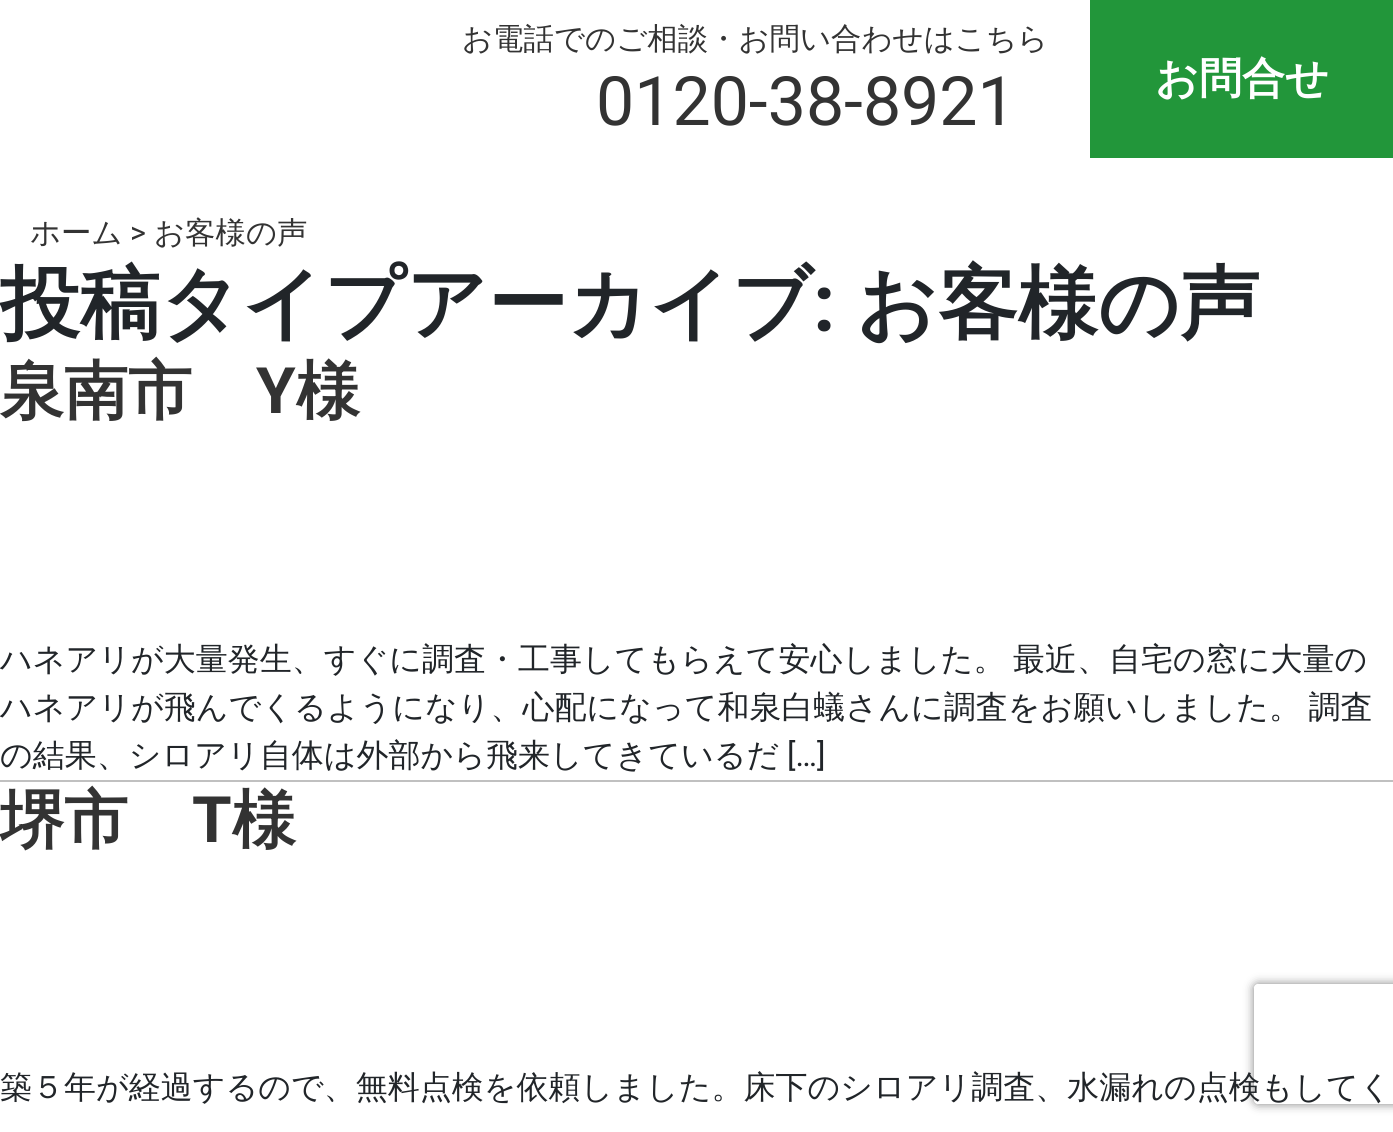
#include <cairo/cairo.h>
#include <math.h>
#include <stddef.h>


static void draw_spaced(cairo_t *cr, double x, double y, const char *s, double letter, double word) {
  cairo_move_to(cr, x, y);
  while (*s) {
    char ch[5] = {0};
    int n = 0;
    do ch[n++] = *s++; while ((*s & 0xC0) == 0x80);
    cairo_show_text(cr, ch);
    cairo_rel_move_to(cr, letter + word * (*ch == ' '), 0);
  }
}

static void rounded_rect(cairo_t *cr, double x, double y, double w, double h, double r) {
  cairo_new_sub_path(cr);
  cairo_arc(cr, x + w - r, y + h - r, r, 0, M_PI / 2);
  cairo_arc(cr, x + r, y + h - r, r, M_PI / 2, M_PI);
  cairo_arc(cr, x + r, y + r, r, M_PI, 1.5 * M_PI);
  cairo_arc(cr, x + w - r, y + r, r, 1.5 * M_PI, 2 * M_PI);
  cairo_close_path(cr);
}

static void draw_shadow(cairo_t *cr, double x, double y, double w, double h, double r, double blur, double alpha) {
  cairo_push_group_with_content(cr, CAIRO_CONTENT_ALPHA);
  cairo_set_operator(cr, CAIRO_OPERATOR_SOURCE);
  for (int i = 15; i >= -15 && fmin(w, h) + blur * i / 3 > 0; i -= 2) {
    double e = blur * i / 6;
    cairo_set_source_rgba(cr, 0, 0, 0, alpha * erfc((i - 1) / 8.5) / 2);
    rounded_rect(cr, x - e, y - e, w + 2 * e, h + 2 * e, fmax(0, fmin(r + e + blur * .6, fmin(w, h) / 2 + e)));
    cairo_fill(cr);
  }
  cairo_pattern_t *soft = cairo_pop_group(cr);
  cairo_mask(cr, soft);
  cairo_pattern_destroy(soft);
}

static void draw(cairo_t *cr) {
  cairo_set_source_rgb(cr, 1, 1, 1);
  cairo_paint(cr);
  cairo_set_source_rgb(cr, 34 / 255.0, 150 / 255.0, 58 / 255.0);
  cairo_rectangle(cr, 1090, 0, 303, 158);
  cairo_fill(cr);
  cairo_set_source_rgb(cr, 192 / 255.0, 192 / 255.0, 192 / 255.0);
  cairo_rectangle(cr, 0, 780, 1393, 2);
  cairo_fill(cr);
  cairo_save(cr);
  cairo_set_fill_rule(cr, CAIRO_FILL_RULE_EVEN_ODD);
  cairo_new_path(cr);
  cairo_move_to(cr, 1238, 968);
  cairo_line_to(cr, 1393, 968);
  cairo_line_to(cr, 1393, 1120);
  cairo_line_to(cr, 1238, 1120);
  cairo_close_path(cr);
  cairo_move_to(cr, 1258, 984);
  cairo_line_to(cr, 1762, 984);
  cairo_curve_to(cr, 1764, 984, 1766, 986, 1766, 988);
  cairo_line_to(cr, 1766, 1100);
  cairo_curve_to(cr, 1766, 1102, 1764, 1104, 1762, 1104);
  cairo_line_to(cr, 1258, 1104);
  cairo_curve_to(cr, 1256, 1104, 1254, 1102, 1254, 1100);
  cairo_line_to(cr, 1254, 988);
  cairo_curve_to(cr, 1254, 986, 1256, 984, 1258, 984);
  cairo_close_path(cr);
  cairo_clip(cr);
  cairo_set_source_rgb(cr, 128 / 255.0, 128 / 255.0, 128 / 255.0);
  draw_shadow(cr, 1254, 984, 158, 120, 4, 5, 1);
  cairo_restore(cr);
  cairo_select_font_face(cr, "WenQuanYi Zen Hei Medium", CAIRO_FONT_SLANT_NORMAL, CAIRO_FONT_WEIGHT_NORMAL);
  cairo_set_font_size(cr, 30.4);
  cairo_set_source_rgb(cr, 51 / 255.0, 51 / 255.0, 51 / 255.0);
  cairo_move_to(cr, 462, 49);
  cairo_show_text(cr, "お電話でのご相談・お問い合わせはこちら");
  cairo_select_font_face(cr, "Roboto", CAIRO_FONT_SLANT_NORMAL, CAIRO_FONT_WEIGHT_NORMAL);
  cairo_set_font_size(cr, 68);
  cairo_move_to(cr, 596, 125);
  cairo_show_text(cr, "0120-38-8921");
  cairo_select_font_face(cr, "WenQuanYi Zen Hei", CAIRO_FONT_SLANT_NORMAL, CAIRO_FONT_WEIGHT_BOLD);
  cairo_set_font_size(cr, 43);
  cairo_set_source_rgb(cr, 1, 1, 1);
  cairo_move_to(cr, 1155, 93);
  cairo_show_text(cr, "お問合せ");
  cairo_select_font_face(cr, "WenQuanYi Zen Hei Medium", CAIRO_FONT_SLANT_NORMAL, CAIRO_FONT_WEIGHT_NORMAL);
  cairo_set_font_size(cr, 30.4);
  cairo_set_source_rgb(cr, 51 / 255.0, 51 / 255.0, 51 / 255.0);
  cairo_move_to(cr, 30, 243);
  cairo_show_text(cr, "ホーム");
  cairo_select_font_face(cr, "Roboto", CAIRO_FONT_SLANT_NORMAL, CAIRO_FONT_WEIGHT_NORMAL);
  cairo_move_to(cr, 130, 243);
  cairo_show_text(cr, ">");
  cairo_select_font_face(cr, "WenQuanYi Zen Hei Medium", CAIRO_FONT_SLANT_NORMAL, CAIRO_FONT_WEIGHT_NORMAL);
  cairo_move_to(cr, 154, 243);
  cairo_show_text(cr, "お客様の声");
  cairo_select_font_face(cr, "WenQuanYi Zen Hei", CAIRO_FONT_SLANT_NORMAL, CAIRO_FONT_WEIGHT_BOLD);
  cairo_set_font_size(cr, 80);
  cairo_set_source_rgb(cr, 33 / 255.0, 37 / 255.0, 41 / 255.0);
  cairo_move_to(cr, 0, 331);
  cairo_show_text(cr, "投稿タイプアーカイブ");
  cairo_select_font_face(cr, "Roboto", CAIRO_FONT_SLANT_NORMAL, CAIRO_FONT_WEIGHT_BOLD);
  cairo_move_to(cr, 813, 331);
  cairo_show_text(cr, ":");
  cairo_select_font_face(cr, "WenQuanYi Zen Hei", CAIRO_FONT_SLANT_NORMAL, CAIRO_FONT_WEIGHT_BOLD);
  cairo_move_to(cr, 856, 331);
  cairo_show_text(cr, "お客様の声");
  cairo_set_font_size(cr, 64);
  cairo_set_source_rgb(cr, 51 / 255.0, 51 / 255.0, 51 / 255.0);
  cairo_move_to(cr, 0, 413);
  cairo_show_text(cr, "泉南市");
  cairo_select_font_face(cr, "Roboto", CAIRO_FONT_SLANT_NORMAL, CAIRO_FONT_WEIGHT_BOLD);
  cairo_move_to(cr, 256, 413);
  cairo_show_text(cr, "Y");
  cairo_select_font_face(cr, "WenQuanYi Zen Hei", CAIRO_FONT_SLANT_NORMAL, CAIRO_FONT_WEIGHT_BOLD);
  cairo_move_to(cr, 296, 413);
  cairo_show_text(cr, "様");
  cairo_select_font_face(cr, "WenQuanYi Zen Hei Medium", CAIRO_FONT_SLANT_NORMAL, CAIRO_FONT_WEIGHT_NORMAL);
  cairo_set_font_size(cr, 32);
  cairo_set_source_rgb(cr, 33 / 255.0, 37 / 255.0, 41 / 255.0);
  draw_spaced(cr, 0, 670, "ハネアリが大量発生、すぐに調査・工事してもらえて安心しました。 最近、自宅の窓に大量の", 0, -2);
  draw_spaced(cr, 0, 718, "ハネアリが飛んでくるようになり、心配になって和泉白蟻さんに調査をお願いしました。 調査", 0, -2);
  cairo_move_to(cr, 0, 766);
  cairo_show_text(cr, "の結果、シロアリ自体は外部から飛来してきているだ");
  cairo_select_font_face(cr, "Roboto", CAIRO_FONT_SLANT_NORMAL, CAIRO_FONT_WEIGHT_NORMAL);
  cairo_move_to(cr, 787, 766);
  cairo_show_text(cr, "[…]");
  cairo_select_font_face(cr, "WenQuanYi Zen Hei", CAIRO_FONT_SLANT_NORMAL, CAIRO_FONT_WEIGHT_BOLD);
  cairo_set_font_size(cr, 64);
  cairo_set_source_rgb(cr, 51 / 255.0, 51 / 255.0, 51 / 255.0);
  cairo_move_to(cr, 0, 842);
  cairo_show_text(cr, "堺市");
  cairo_select_font_face(cr, "Roboto", CAIRO_FONT_SLANT_NORMAL, CAIRO_FONT_WEIGHT_BOLD);
  cairo_move_to(cr, 192, 842);
  cairo_show_text(cr, "T");
  cairo_select_font_face(cr, "WenQuanYi Zen Hei", CAIRO_FONT_SLANT_NORMAL, CAIRO_FONT_WEIGHT_BOLD);
  cairo_move_to(cr, 232, 842);
  cairo_show_text(cr, "様");
  cairo_select_font_face(cr, "WenQuanYi Zen Hei Medium", CAIRO_FONT_SLANT_NORMAL, CAIRO_FONT_WEIGHT_NORMAL);
  cairo_set_font_size(cr, 32);
  cairo_set_source_rgb(cr, 33 / 255.0, 37 / 255.0, 41 / 255.0);
  cairo_move_to(cr, 0, 1098);
  cairo_show_text(cr, "築５年が経過するので、無料点検を依頼しました。床下のシロアリ調査、水漏れの点検もしてく");
}

int main(void) {
  cairo_surface_t *surface = cairo_image_surface_create(CAIRO_FORMAT_RGB24, 1393, 1132);
  cairo_t *cr = cairo_create(surface);
  cairo_font_options_t *options = cairo_font_options_create();
  cairo_font_options_set_hint_metrics(options, CAIRO_HINT_METRICS_OFF);
  cairo_font_options_set_hint_style(options, CAIRO_HINT_STYLE_NONE);
  cairo_set_font_options(cr, options);
  cairo_set_miter_limit(cr, 4);
  draw(cr);
  cairo_surface_write_to_png(surface, "out.png");
  cairo_font_options_destroy(options);
  cairo_destroy(cr);
  cairo_surface_destroy(surface);
  return 0;
}
